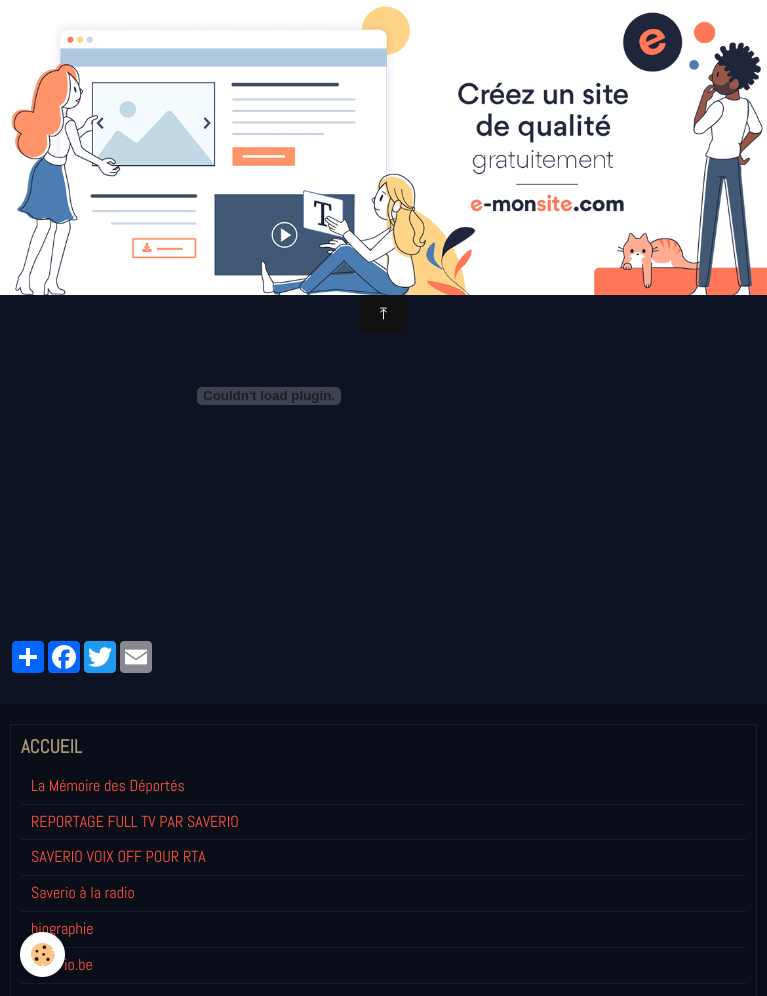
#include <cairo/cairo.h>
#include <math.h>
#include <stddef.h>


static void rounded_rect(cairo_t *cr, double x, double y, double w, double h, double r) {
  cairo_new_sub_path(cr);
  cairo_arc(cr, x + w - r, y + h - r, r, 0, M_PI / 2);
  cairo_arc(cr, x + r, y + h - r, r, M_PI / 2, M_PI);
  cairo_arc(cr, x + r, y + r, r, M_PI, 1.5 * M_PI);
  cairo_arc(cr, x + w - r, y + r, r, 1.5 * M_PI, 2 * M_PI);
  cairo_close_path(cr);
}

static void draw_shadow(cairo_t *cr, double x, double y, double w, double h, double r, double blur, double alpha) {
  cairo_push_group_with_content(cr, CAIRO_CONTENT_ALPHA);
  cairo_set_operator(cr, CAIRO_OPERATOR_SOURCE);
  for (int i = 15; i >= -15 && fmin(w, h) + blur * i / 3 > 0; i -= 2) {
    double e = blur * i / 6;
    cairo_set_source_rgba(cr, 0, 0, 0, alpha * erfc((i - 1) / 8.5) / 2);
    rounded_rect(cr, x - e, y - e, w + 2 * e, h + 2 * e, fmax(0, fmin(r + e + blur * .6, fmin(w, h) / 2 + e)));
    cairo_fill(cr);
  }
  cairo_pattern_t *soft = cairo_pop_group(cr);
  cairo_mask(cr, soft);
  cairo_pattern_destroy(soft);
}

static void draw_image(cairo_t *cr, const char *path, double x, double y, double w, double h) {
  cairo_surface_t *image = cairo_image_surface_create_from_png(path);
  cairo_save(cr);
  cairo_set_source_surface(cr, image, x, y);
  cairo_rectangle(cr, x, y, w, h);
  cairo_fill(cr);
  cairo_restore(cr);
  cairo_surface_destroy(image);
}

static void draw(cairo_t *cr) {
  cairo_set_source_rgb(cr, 13 / 255.0, 19 / 255.0, 34 / 255.0);
  cairo_paint(cr);
  cairo_set_source_rgb(cr, 1, 1, 1);
  cairo_rectangle(cr, 0, 0, 767, 295);
  cairo_fill(cr);
  draw_image(cr, "images/1.png", 11, 6, 756, 289);
  cairo_set_source_rgb(cr, 17 / 255.0, 17 / 255.0, 17 / 255.0);
  cairo_new_path(cr);
  cairo_move_to(cr, 360, 295);
  cairo_line_to(cr, 407, 295);
  cairo_line_to(cr, 407, 329);
  cairo_curve_to(cr, 407, 331, 405, 333, 403, 333);
  cairo_line_to(cr, 364, 333);
  cairo_curve_to(cr, 362, 333, 360, 331, 360, 329);
  cairo_close_path(cr);
  cairo_fill(cr);
  draw_image(cr, "images/2.png", 197, 387, 144, 18);
  cairo_set_source_rgb(cr, 1 / 255.0, 102 / 255.0, 1);
  rounded_rect(cr, 12, 641, 32, 32, 4);
  cairo_fill(cr);
  cairo_set_source_rgb(cr, 1, 1, 1);
  cairo_rectangle(cr, 26, 648, 4, 18);
  cairo_fill(cr);
  cairo_rectangle(cr, 19, 655, 18, 4);
  cairo_fill(cr);
  cairo_set_source_rgb(cr, 8 / 255.0, 102 / 255.0, 1);
  rounded_rect(cr, 48, 641, 32, 32, 4);
  cairo_fill(cr);
  draw_image(cr, "images/3.png", 52, 645, 24, 24);
  cairo_set_source_rgb(cr, 29 / 255.0, 155 / 255.0, 240 / 255.0);
  rounded_rect(cr, 84, 641, 32, 32, 4);
  cairo_fill(cr);
  draw_image(cr, "images/4.png", 88, 647, 24, 20);
  cairo_set_source_rgb(cr, 136 / 255.0, 137 / 255.0, 144 / 255.0);
  rounded_rect(cr, 120, 641, 32, 32, 4);
  cairo_fill(cr);
  draw_image(cr, "images/5.png", 125, 649, 22, 16);
  cairo_set_source_rgb(cr, 10 / 255.0, 14 / 255.0, 25 / 255.0);
  cairo_rectangle(cr, 0, 704, 767, 292);
  cairo_fill(cr);
  cairo_rectangle(cr, 10.5, 724.5, 746, 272);
  cairo_set_source_rgb(cr, 20 / 255.0, 29 / 255.0, 49 / 255.0);
  cairo_set_line_width(cr, 1);
  cairo_stroke(cr);
  cairo_rectangle(cr, 21, 804, 725, 1);
  cairo_fill(cr);
  cairo_rectangle(cr, 21, 839, 725, 1);
  cairo_fill(cr);
  cairo_rectangle(cr, 21, 875, 725, 1);
  cairo_fill(cr);
  cairo_rectangle(cr, 21, 911, 725, 1);
  cairo_fill(cr);
  cairo_rectangle(cr, 21, 947, 725, 1);
  cairo_fill(cr);
  cairo_rectangle(cr, 21, 983, 725, 1);
  cairo_fill(cr);
  cairo_set_source_rgb(cr, 0, 0, 0);
  draw_shadow(cr, 20, 935, 45, 45, 22.5, 5, 0.24);
  cairo_select_font_face(cr, "FreeSerif", CAIRO_FONT_SLANT_NORMAL, CAIRO_FONT_WEIGHT_NORMAL);
  cairo_set_font_size(cr, 16);
  cairo_set_source_rgb(cr, 1, 1, 1);
  cairo_move_to(cr, 380, 319);
  cairo_show_text(cr, "⤒");
  cairo_select_font_face(cr, "Abel", CAIRO_FONT_SLANT_NORMAL, CAIRO_FONT_WEIGHT_BOLD);
  cairo_set_font_size(cr, 19);
  cairo_set_source_rgb(cr, 171 / 255.0, 152 / 255.0, 122 / 255.0);
  cairo_move_to(cr, 21, 753);
  cairo_show_text(cr, "ACCUEIL");
  cairo_select_font_face(cr, "Abel", CAIRO_FONT_SLANT_NORMAL, CAIRO_FONT_WEIGHT_NORMAL);
  cairo_set_font_size(cr, 16);
  cairo_set_source_rgb(cr, 1, 83 / 255.0, 61 / 255.0);
  cairo_move_to(cr, 31, 791);
  cairo_show_text(cr, "La Mémoire des Déportés");
  cairo_move_to(cr, 31, 827);
  cairo_show_text(cr, "REPORTAGE FULL TV PAR SAVERIO");
  cairo_move_to(cr, 31, 862);
  cairo_show_text(cr, "SAVERIO VOIX OFF POUR RTA");
  cairo_move_to(cr, 31, 898);
  cairo_show_text(cr, "Saverio à la radio");
  cairo_move_to(cr, 31, 934);
  cairo_show_text(cr, "biographie");
  cairo_move_to(cr, 64, 970);
  cairo_show_text(cr, "io.be");
  cairo_set_source_rgb(cr, 1, 1, 1);
  cairo_new_path(cr);
  cairo_arc(cr, 42.5, 954.5, 22.5, 0, 2 * M_PI);
  cairo_fill(cr);
  draw_image(cr, "images/6.png", 30, 942, 25, 25);
}

int main(void) {
  cairo_surface_t *surface = cairo_image_surface_create(CAIRO_FORMAT_RGB24, 767, 996);
  cairo_t *cr = cairo_create(surface);
  cairo_font_options_t *options = cairo_font_options_create();
  cairo_font_options_set_hint_metrics(options, CAIRO_HINT_METRICS_OFF);
  cairo_font_options_set_hint_style(options, CAIRO_HINT_STYLE_NONE);
  cairo_set_font_options(cr, options);
  cairo_set_miter_limit(cr, 4);
  draw(cr);
  cairo_surface_write_to_png(surface, "out.png");
  cairo_font_options_destroy(options);
  cairo_destroy(cr);
  cairo_surface_destroy(surface);
  return 0;
}
